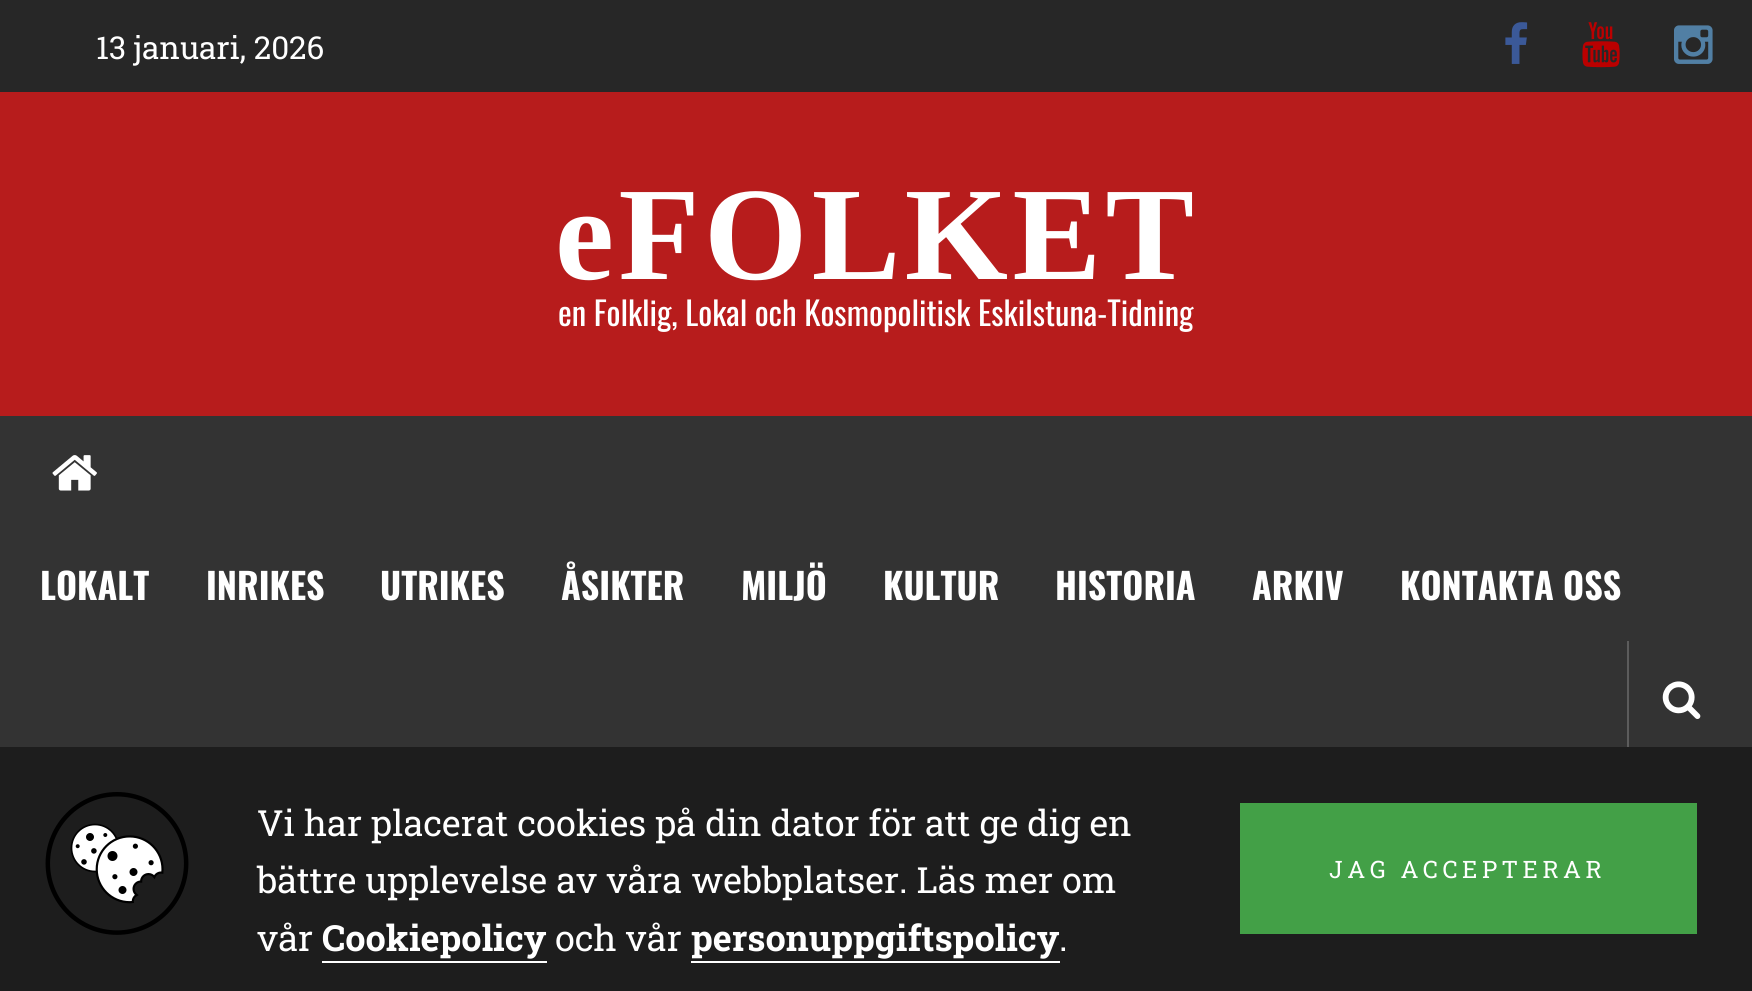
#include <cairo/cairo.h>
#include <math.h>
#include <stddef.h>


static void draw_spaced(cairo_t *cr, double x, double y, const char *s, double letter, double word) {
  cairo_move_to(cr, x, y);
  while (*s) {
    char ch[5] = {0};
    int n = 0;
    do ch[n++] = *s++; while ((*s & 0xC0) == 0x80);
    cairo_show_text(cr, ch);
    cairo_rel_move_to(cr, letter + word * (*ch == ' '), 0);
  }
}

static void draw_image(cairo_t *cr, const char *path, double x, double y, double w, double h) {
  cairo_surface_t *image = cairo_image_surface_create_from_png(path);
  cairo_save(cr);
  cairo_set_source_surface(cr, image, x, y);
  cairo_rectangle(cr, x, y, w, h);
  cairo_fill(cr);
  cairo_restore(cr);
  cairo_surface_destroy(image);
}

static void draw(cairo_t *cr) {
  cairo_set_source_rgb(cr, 39 / 255.0, 39 / 255.0, 39 / 255.0);
  cairo_paint(cr);
  draw_image(cr, "images/1.png", 1505, 22, 23, 42);
  draw_image(cr, "images/2.png", 1582, 22, 38, 46);
  draw_image(cr, "images/3.png", 1674, 25, 39, 39);
  cairo_set_source_rgb(cr, 183 / 255.0, 28 / 255.0, 28 / 255.0);
  cairo_rectangle(cr, 0, 92, 1752, 324);
  cairo_fill(cr);
  cairo_set_source_rgb(cr, 51 / 255.0, 51 / 255.0, 51 / 255.0);
  cairo_rectangle(cr, 0, 416, 1752, 331);
  cairo_fill(cr);
  draw_image(cr, "images/4.png", 52, 455, 45, 36);
  cairo_set_source_rgb(cr, 92 / 255.0, 92 / 255.0, 92 / 255.0);
  cairo_rectangle(cr, 1627, 641, 2, 113);
  cairo_fill(cr);
  draw_image(cr, "images/5.png", 1662, 681, 39, 38);
  cairo_set_source_rgb(cr, 29 / 255.0, 29 / 255.0, 29 / 255.0);
  cairo_rectangle(cr, 0, 747, 1752, 244);
  cairo_fill(cr);
  draw_image(cr, "images/6.png", 45, 792, 144, 143);
  cairo_set_source_rgb(cr, 1, 1, 1);
  cairo_rectangle(cr, 322, 961, 225, 2);
  cairo_fill(cr);
  cairo_rectangle(cr, 691, 961, 369, 2);
  cairo_fill(cr);
  cairo_set_source_rgb(cr, 67 / 255.0, 160 / 255.0, 71 / 255.0);
  cairo_rectangle(cr, 1240, 803, 457, 131);
  cairo_fill(cr);
  cairo_select_font_face(cr, "Roboto Slab", CAIRO_FONT_SLANT_NORMAL, CAIRO_FONT_WEIGHT_NORMAL);
  cairo_set_font_size(cr, 31.5);
  cairo_set_source_rgb(cr, 1, 1, 1);
  cairo_move_to(cr, 96, 59);
  cairo_show_text(cr, "13 januari, 2026");
  cairo_select_font_face(cr, "Liberation Serif", CAIRO_FONT_SLANT_NORMAL, CAIRO_FONT_WEIGHT_BOLD);
  cairo_set_font_size(cr, 132.75);
  draw_spaced(cr, 555, 279, "eFOLKET", 4.5, 0);
  cairo_select_font_face(cr, "Oswald", CAIRO_FONT_SLANT_NORMAL, CAIRO_FONT_WEIGHT_NORMAL);
  cairo_set_font_size(cr, 32.8);
  cairo_move_to(cr, 558, 326);
  cairo_show_text(cr, "en Folklig, Lokal och Kosmopolitisk Eskilstuna-Tidning");
  cairo_select_font_face(cr, "Oswald", CAIRO_FONT_SLANT_NORMAL, CAIRO_FONT_WEIGHT_BOLD);
  cairo_set_font_size(cr, 36);
  cairo_move_to(cr, 40, 600);
  cairo_show_text(cr, "LOKALT");
  cairo_move_to(cr, 206, 600);
  cairo_show_text(cr, "INRIKES");
  cairo_move_to(cr, 380, 600);
  cairo_show_text(cr, "UTRIKES");
  cairo_move_to(cr, 561, 600);
  cairo_show_text(cr, "ÅSIKTER");
  cairo_move_to(cr, 741, 600);
  cairo_show_text(cr, "MILJÖ");
  cairo_move_to(cr, 883, 600);
  cairo_show_text(cr, "KULTUR");
  cairo_move_to(cr, 1055, 600);
  cairo_show_text(cr, "HISTORIA");
  cairo_move_to(cr, 1252, 600);
  cairo_show_text(cr, "ARKIV");
  cairo_move_to(cr, 1400, 600);
  cairo_show_text(cr, "KONTAKTA OSS");
  cairo_select_font_face(cr, "Roboto Slab", CAIRO_FONT_SLANT_NORMAL, CAIRO_FONT_WEIGHT_NORMAL);
  cairo_move_to(cr, 257, 836);
  cairo_show_text(cr, "Vi har placerat cookies på din dator för att ge dig en");
  cairo_move_to(cr, 257, 893);
  cairo_show_text(cr, "bättre upplevelse av våra webbplatser. Läs mer om");
  cairo_move_to(cr, 257, 951);
  cairo_show_text(cr, "vår");
  cairo_select_font_face(cr, "Roboto Slab", CAIRO_FONT_SLANT_NORMAL, CAIRO_FONT_WEIGHT_BOLD);
  cairo_move_to(cr, 322, 951);
  cairo_show_text(cr, "Cookiepolicy");
  cairo_select_font_face(cr, "Roboto Slab", CAIRO_FONT_SLANT_NORMAL, CAIRO_FONT_WEIGHT_NORMAL);
  cairo_move_to(cr, 555, 951);
  cairo_show_text(cr, "och vår");
  cairo_select_font_face(cr, "Roboto Slab", CAIRO_FONT_SLANT_NORMAL, CAIRO_FONT_WEIGHT_BOLD);
  cairo_move_to(cr, 691, 951);
  cairo_show_text(cr, "personuppgiftspolicy");
  cairo_select_font_face(cr, "Roboto Slab", CAIRO_FONT_SLANT_NORMAL, CAIRO_FONT_WEIGHT_NORMAL);
  cairo_move_to(cr, 1059, 951);
  cairo_show_text(cr, ".");
  cairo_set_font_size(cr, 24);
  draw_spaced(cr, 1329, 878, "JAG ACCEPTERAR", 4.5, 0);
}

int main(void) {
  cairo_surface_t *surface = cairo_image_surface_create(CAIRO_FORMAT_RGB24, 1752, 991);
  cairo_t *cr = cairo_create(surface);
  cairo_font_options_t *options = cairo_font_options_create();
  cairo_font_options_set_hint_metrics(options, CAIRO_HINT_METRICS_OFF);
  cairo_font_options_set_hint_style(options, CAIRO_HINT_STYLE_NONE);
  cairo_set_font_options(cr, options);
  cairo_set_miter_limit(cr, 4);
  draw(cr);
  cairo_surface_write_to_png(surface, "out.png");
  cairo_font_options_destroy(options);
  cairo_destroy(cr);
  cairo_surface_destroy(surface);
  return 0;
}
